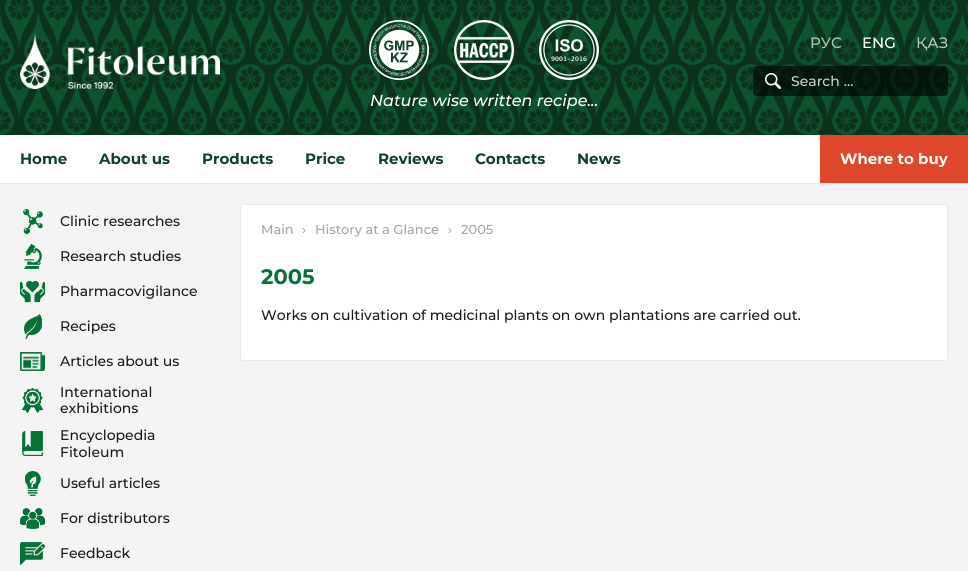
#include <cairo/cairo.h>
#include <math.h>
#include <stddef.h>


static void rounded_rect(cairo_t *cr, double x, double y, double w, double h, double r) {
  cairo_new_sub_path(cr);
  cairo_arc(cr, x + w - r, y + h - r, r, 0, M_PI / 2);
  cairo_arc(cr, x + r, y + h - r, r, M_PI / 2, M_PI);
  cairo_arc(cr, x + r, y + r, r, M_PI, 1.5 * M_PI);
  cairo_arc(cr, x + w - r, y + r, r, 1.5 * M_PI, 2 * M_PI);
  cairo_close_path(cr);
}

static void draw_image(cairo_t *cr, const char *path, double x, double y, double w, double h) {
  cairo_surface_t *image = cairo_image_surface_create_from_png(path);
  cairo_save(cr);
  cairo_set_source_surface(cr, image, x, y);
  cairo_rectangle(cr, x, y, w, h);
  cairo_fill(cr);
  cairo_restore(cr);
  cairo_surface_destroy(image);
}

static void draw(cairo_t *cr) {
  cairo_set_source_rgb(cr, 244 / 255.0, 244 / 255.0, 244 / 255.0);
  cairo_paint(cr);
  draw_image(cr, "images/1.png", 0, 0, 968, 135);
  draw_image(cr, "images/2.png", 20, 32, 200, 57);
  cairo_set_source_rgba(cr, 0, 0, 0, 0.6);
  rounded_rect(cr, 753, 66, 195, 30, 4);
  cairo_fill(cr);
  draw_image(cr, "images/3.png", 765, 73, 16, 16);
  draw_image(cr, "images/4.png", 369, 20, 230, 60);
  cairo_set_source_rgb(cr, 1, 1, 1);
  cairo_rectangle(cr, 0, 135, 820, 48);
  cairo_fill(cr);
  cairo_set_source_rgb(cr, 231 / 255.0, 232 / 255.0, 235 / 255.0);
  cairo_rectangle(cr, 0, 183, 968, 1);
  cairo_fill(cr);
  cairo_set_source_rgb(cr, 222 / 255.0, 71 / 255.0, 43 / 255.0);
  cairo_rectangle(cr, 820, 135, 148, 48);
  cairo_fill(cr);
  draw_image(cr, "images/5.png", 23, 209, 20, 25);
  draw_image(cr, "images/6.png", 24, 244, 18, 25);
  draw_image(cr, "images/7.png", 20, 280, 25, 23);
  draw_image(cr, "images/8.png", 24, 314, 18, 25);
  draw_image(cr, "images/9.png", 20, 352, 25, 19);
  draw_image(cr, "images/10.png", 22, 388, 21, 25);
  draw_image(cr, "images/11.png", 22, 431, 21, 25);
  draw_image(cr, "images/12.png", 25, 471, 16, 25);
  draw_image(cr, "images/13.png", 20, 508, 25, 21);
  draw_image(cr, "images/14.png", 20, 541, 25, 24);
  cairo_set_source_rgb(cr, 1, 1, 1);
  rounded_rect(cr, 240.5, 204.5, 707, 156, 3.5);
  cairo_fill_preserve(cr);
  cairo_set_source_rgb(cr, 231 / 255.0, 232 / 255.0, 235 / 255.0);
  cairo_set_line_width(cr, 1);
  cairo_stroke(cr);
  cairo_select_font_face(cr, "Montserrat Medium", CAIRO_FONT_SLANT_NORMAL, CAIRO_FONT_WEIGHT_NORMAL);
  cairo_set_font_size(cr, 15);
  cairo_set_source_rgb(cr, 182 / 255.0, 198 / 255.0, 189 / 255.0);
  cairo_move_to(cr, 810, 48);
  cairo_show_text(cr, "РУС");
  cairo_set_source_rgb(cr, 1, 1, 1);
  cairo_move_to(cr, 862, 48);
  cairo_show_text(cr, "ENG");
  cairo_set_source_rgb(cr, 182 / 255.0, 198 / 255.0, 189 / 255.0);
  cairo_move_to(cr, 916, 48);
  cairo_show_text(cr, "ҚАЗ");
  cairo_set_font_size(cr, 14);
  cairo_set_source_rgb(cr, 205 / 255.0, 209 / 255.0, 207 / 255.0);
  cairo_move_to(cr, 791, 86);
  cairo_show_text(cr, "Search …");
  cairo_select_font_face(cr, "Montserrat Medium", CAIRO_FONT_SLANT_ITALIC, CAIRO_FONT_WEIGHT_NORMAL);
  cairo_set_font_size(cr, 16);
  cairo_set_source_rgb(cr, 1, 1, 1);
  cairo_move_to(cr, 370, 106);
  cairo_show_text(cr, "Nature wise written recipe...");
  cairo_select_font_face(cr, "Montserrat", CAIRO_FONT_SLANT_NORMAL, CAIRO_FONT_WEIGHT_BOLD);
  cairo_set_font_size(cr, 15);
  cairo_set_source_rgb(cr, 16 / 255.0, 64 / 255.0, 38 / 255.0);
  cairo_move_to(cr, 20, 164);
  cairo_show_text(cr, "Home");
  cairo_move_to(cr, 99, 164);
  cairo_show_text(cr, "About us");
  cairo_move_to(cr, 202, 164);
  cairo_show_text(cr, "Products");
  cairo_move_to(cr, 305, 164);
  cairo_show_text(cr, "Price");
  cairo_move_to(cr, 378, 164);
  cairo_show_text(cr, "Reviews");
  cairo_move_to(cr, 475, 164);
  cairo_show_text(cr, "Contacts");
  cairo_move_to(cr, 577, 164);
  cairo_show_text(cr, "News");
  cairo_set_source_rgb(cr, 1, 1, 1);
  cairo_move_to(cr, 840, 164);
  cairo_show_text(cr, "Where to buy");
  cairo_select_font_face(cr, "Montserrat Medium", CAIRO_FONT_SLANT_NORMAL, CAIRO_FONT_WEIGHT_NORMAL);
  cairo_set_font_size(cr, 14);
  cairo_set_source_rgb(cr, 26 / 255.0, 26 / 255.0, 26 / 255.0);
  cairo_move_to(cr, 60, 226);
  cairo_show_text(cr, "Clinic researches");
  cairo_move_to(cr, 60, 261);
  cairo_show_text(cr, "Research studies");
  cairo_move_to(cr, 60, 296);
  cairo_show_text(cr, "Pharmacovigilance");
  cairo_move_to(cr, 60, 331);
  cairo_show_text(cr, "Recipes");
  cairo_move_to(cr, 60, 366);
  cairo_show_text(cr, "Articles about us");
  cairo_move_to(cr, 60, 397);
  cairo_show_text(cr, "International");
  cairo_move_to(cr, 60, 413);
  cairo_show_text(cr, "exhibitions");
  cairo_move_to(cr, 60, 440);
  cairo_show_text(cr, "Encyclopedia");
  cairo_move_to(cr, 60, 457);
  cairo_show_text(cr, "Fitoleum");
  cairo_move_to(cr, 60, 488);
  cairo_show_text(cr, "Useful articles");
  cairo_move_to(cr, 60, 523);
  cairo_show_text(cr, "For distributors");
  cairo_move_to(cr, 60, 558);
  cairo_show_text(cr, "Feedback");
  cairo_set_font_size(cr, 13);
  cairo_set_source_rgb(cr, 164 / 255.0, 165 / 255.0, 169 / 255.0);
  cairo_move_to(cr, 261, 234);
  cairo_show_text(cr, "Main");
  cairo_move_to(cr, 302, 234);
  cairo_show_text(cr, "›");
  cairo_move_to(cr, 315, 234);
  cairo_show_text(cr, "History at a Glance");
  cairo_move_to(cr, 448, 234);
  cairo_show_text(cr, "›");
  cairo_move_to(cr, 461, 234);
  cairo_show_text(cr, "2005");
  cairo_select_font_face(cr, "Montserrat", CAIRO_FONT_SLANT_NORMAL, CAIRO_FONT_WEIGHT_BOLD);
  cairo_set_font_size(cr, 21);
  cairo_set_source_rgb(cr, 5 / 255.0, 114 / 255.0, 54 / 255.0);
  cairo_move_to(cr, 261, 284);
  cairo_show_text(cr, "2005");
  cairo_select_font_face(cr, "Montserrat Medium", CAIRO_FONT_SLANT_NORMAL, CAIRO_FONT_WEIGHT_NORMAL);
  cairo_set_font_size(cr, 14);
  cairo_set_source_rgb(cr, 26 / 255.0, 26 / 255.0, 26 / 255.0);
  cairo_move_to(cr, 261, 320);
  cairo_show_text(cr, "Works on cultivation of medicinal plants on own plantations are carried out.");
}

int main(void) {
  cairo_surface_t *surface = cairo_image_surface_create(CAIRO_FORMAT_RGB24, 968, 571);
  cairo_t *cr = cairo_create(surface);
  cairo_font_options_t *options = cairo_font_options_create();
  cairo_font_options_set_hint_metrics(options, CAIRO_HINT_METRICS_OFF);
  cairo_font_options_set_hint_style(options, CAIRO_HINT_STYLE_NONE);
  cairo_set_font_options(cr, options);
  cairo_set_miter_limit(cr, 4);
  draw(cr);
  cairo_surface_write_to_png(surface, "out.png");
  cairo_font_options_destroy(options);
  cairo_destroy(cr);
  cairo_surface_destroy(surface);
  return 0;
}
